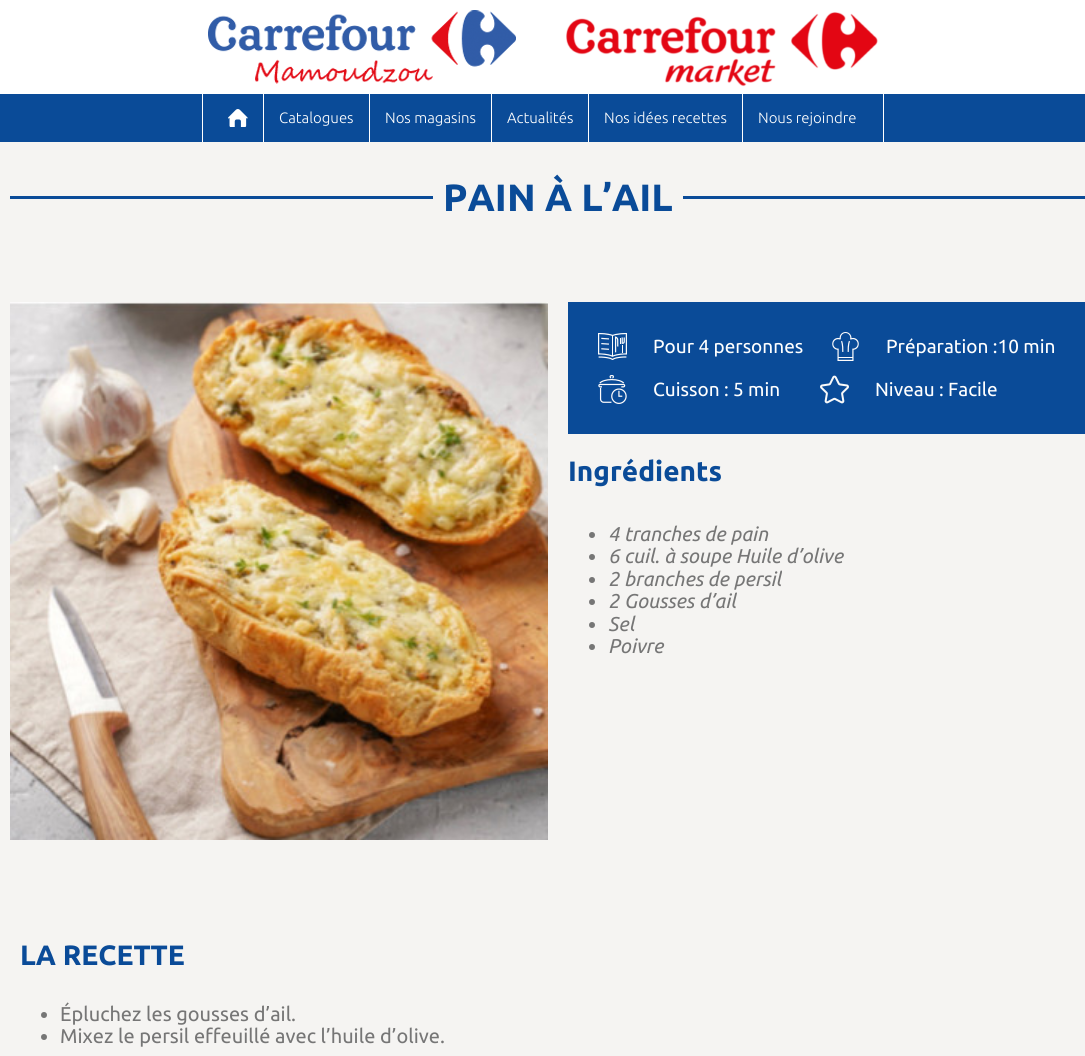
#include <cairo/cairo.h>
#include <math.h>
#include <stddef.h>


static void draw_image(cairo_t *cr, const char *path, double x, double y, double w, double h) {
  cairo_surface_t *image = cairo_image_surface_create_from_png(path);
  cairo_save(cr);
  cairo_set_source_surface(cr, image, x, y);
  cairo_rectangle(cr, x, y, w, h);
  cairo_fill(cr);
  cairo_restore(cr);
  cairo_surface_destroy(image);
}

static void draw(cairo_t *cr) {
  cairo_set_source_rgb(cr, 1, 1, 1);
  cairo_paint(cr);
  draw_image(cr, "images/1.png", 208, 10, 670, 77);
  cairo_set_source_rgb(cr, 10 / 255.0, 75 / 255.0, 152 / 255.0);
  cairo_rectangle(cr, 0, 94, 1085, 48);
  cairo_fill(cr);
  cairo_set_source_rgb(cr, 1, 1, 1);
  cairo_rectangle(cr, 883, 94, 1, 48);
  cairo_fill(cr);
  cairo_rectangle(cr, 202, 94, 1, 48);
  cairo_fill(cr);
  draw_image(cr, "images/2.png", 228, 109, 20, 18);
  cairo_rectangle(cr, 263, 94, 1, 48);
  cairo_fill(cr);
  cairo_rectangle(cr, 369, 94, 1, 48);
  cairo_fill(cr);
  cairo_rectangle(cr, 491, 94, 1, 48);
  cairo_fill(cr);
  cairo_rectangle(cr, 588, 94, 1, 48);
  cairo_fill(cr);
  cairo_rectangle(cr, 742, 94, 1, 48);
  cairo_fill(cr);
  cairo_set_source_rgb(cr, 245 / 255.0, 244 / 255.0, 242 / 255.0);
  cairo_rectangle(cr, 0, 142, 1085, 914);
  cairo_fill(cr);
  cairo_set_source_rgb(cr, 10 / 255.0, 75 / 255.0, 152 / 255.0);
  cairo_rectangle(cr, 10, 196, 423, 3);
  cairo_fill(cr);
  cairo_rectangle(cr, 683, 196, 402, 3);
  cairo_fill(cr);
  draw_image(cr, "images/3.png", 10, 302, 538, 538);
  cairo_rectangle(cr, 568, 302, 517, 132);
  cairo_fill(cr);
  draw_image(cr, "images/4.png", 598, 333, 29, 27);
  draw_image(cr, "images/5.png", 832, 332, 27, 29);
  draw_image(cr, "images/6.png", 598, 375, 29, 29);
  draw_image(cr, "images/7.png", 820, 375, 29, 29);
  cairo_set_source_rgb(cr, 118 / 255.0, 118 / 255.0, 118 / 255.0);
  cairo_arc(cr, 592, 535, 3, 0, 2 * M_PI);
  cairo_fill(cr);
  cairo_arc(cr, 592, 557, 3, 0, 2 * M_PI);
  cairo_fill(cr);
  cairo_arc(cr, 592, 580, 3, 0, 2 * M_PI);
  cairo_fill(cr);
  cairo_arc(cr, 592, 602, 3, 0, 2 * M_PI);
  cairo_fill(cr);
  cairo_arc(cr, 592, 625, 3, 0, 2 * M_PI);
  cairo_fill(cr);
  cairo_arc(cr, 592, 647, 3, 0, 2 * M_PI);
  cairo_fill(cr);
  cairo_arc(cr, 44, 1015, 3, 0, 2 * M_PI);
  cairo_fill(cr);
  cairo_arc(cr, 44, 1037, 3, 0, 2 * M_PI);
  cairo_fill(cr);
  cairo_select_font_face(cr, "Ubuntu Light", CAIRO_FONT_SLANT_NORMAL, CAIRO_FONT_WEIGHT_NORMAL);
  cairo_set_font_size(cr, 15);
  cairo_set_source_rgb(cr, 1, 1, 1);
  cairo_move_to(cr, 279, 123);
  cairo_show_text(cr, "Catalogues");
  cairo_move_to(cr, 385, 123);
  cairo_show_text(cr, "Nos magasins");
  cairo_move_to(cr, 507, 123);
  cairo_show_text(cr, "Actualités");
  cairo_move_to(cr, 604, 123);
  cairo_show_text(cr, "Nos idées recettes");
  cairo_move_to(cr, 758, 123);
  cairo_show_text(cr, "Nous rejoindre");
  cairo_select_font_face(cr, "Ubuntu", CAIRO_FONT_SLANT_NORMAL, CAIRO_FONT_WEIGHT_BOLD);
  cairo_set_font_size(cr, 38);
  cairo_set_source_rgb(cr, 10 / 255.0, 75 / 255.0, 152 / 255.0);
  cairo_move_to(cr, 443, 211);
  cairo_show_text(cr, "PAIN À L’AIL");
  cairo_select_font_face(cr, "Ubuntu", CAIRO_FONT_SLANT_NORMAL, CAIRO_FONT_WEIGHT_NORMAL);
  cairo_set_font_size(cr, 19);
  cairo_set_source_rgb(cr, 1, 1, 1);
  cairo_move_to(cr, 653, 353);
  cairo_show_text(cr, "Pour 4 personnes");
  cairo_move_to(cr, 886, 353);
  cairo_show_text(cr, "Préparation :10 min");
  cairo_move_to(cr, 653, 396);
  cairo_show_text(cr, "Cuisson : 5 min");
  cairo_move_to(cr, 875, 396);
  cairo_show_text(cr, "Niveau : Facile");
  cairo_select_font_face(cr, "Ubuntu", CAIRO_FONT_SLANT_NORMAL, CAIRO_FONT_WEIGHT_BOLD);
  cairo_set_font_size(cr, 28);
  cairo_set_source_rgb(cr, 10 / 255.0, 75 / 255.0, 152 / 255.0);
  cairo_move_to(cr, 568, 481);
  cairo_show_text(cr, "Ingrédients");
  cairo_select_font_face(cr, "Ubuntu", CAIRO_FONT_SLANT_ITALIC, CAIRO_FONT_WEIGHT_NORMAL);
  cairo_set_font_size(cr, 20);
  cairo_set_source_rgb(cr, 118 / 255.0, 118 / 255.0, 118 / 255.0);
  cairo_move_to(cr, 608, 541);
  cairo_show_text(cr, "4 tranches de pain");
  cairo_move_to(cr, 608, 563);
  cairo_show_text(cr, "6 cuil. à soupe Huile d’olive");
  cairo_move_to(cr, 608, 586);
  cairo_show_text(cr, "2 branches de persil");
  cairo_move_to(cr, 608, 608);
  cairo_show_text(cr, "2 Gousses d’ail");
  cairo_move_to(cr, 608, 631);
  cairo_show_text(cr, "Sel");
  cairo_move_to(cr, 608, 653);
  cairo_show_text(cr, "Poivre");
  cairo_select_font_face(cr, "Ubuntu", CAIRO_FONT_SLANT_NORMAL, CAIRO_FONT_WEIGHT_BOLD);
  cairo_set_font_size(cr, 28);
  cairo_set_source_rgb(cr, 10 / 255.0, 75 / 255.0, 152 / 255.0);
  cairo_move_to(cr, 20, 965);
  cairo_show_text(cr, "LA RECETTE");
  cairo_select_font_face(cr, "Ubuntu", CAIRO_FONT_SLANT_NORMAL, CAIRO_FONT_WEIGHT_NORMAL);
  cairo_set_font_size(cr, 20);
  cairo_set_source_rgb(cr, 118 / 255.0, 118 / 255.0, 118 / 255.0);
  cairo_move_to(cr, 60, 1021);
  cairo_show_text(cr, "Épluchez les gousses d’ail.");
  cairo_move_to(cr, 60, 1043);
  cairo_show_text(cr, "Mixez le persil effeuillé avec l’huile d’olive.");
}

int main(void) {
  cairo_surface_t *surface = cairo_image_surface_create(CAIRO_FORMAT_RGB24, 1085, 1056);
  cairo_t *cr = cairo_create(surface);
  cairo_font_options_t *options = cairo_font_options_create();
  cairo_font_options_set_hint_metrics(options, CAIRO_HINT_METRICS_OFF);
  cairo_font_options_set_hint_style(options, CAIRO_HINT_STYLE_NONE);
  cairo_set_font_options(cr, options);
  cairo_set_miter_limit(cr, 4);
  draw(cr);
  cairo_surface_write_to_png(surface, "out.png");
  cairo_font_options_destroy(options);
  cairo_destroy(cr);
  cairo_surface_destroy(surface);
  return 0;
}
